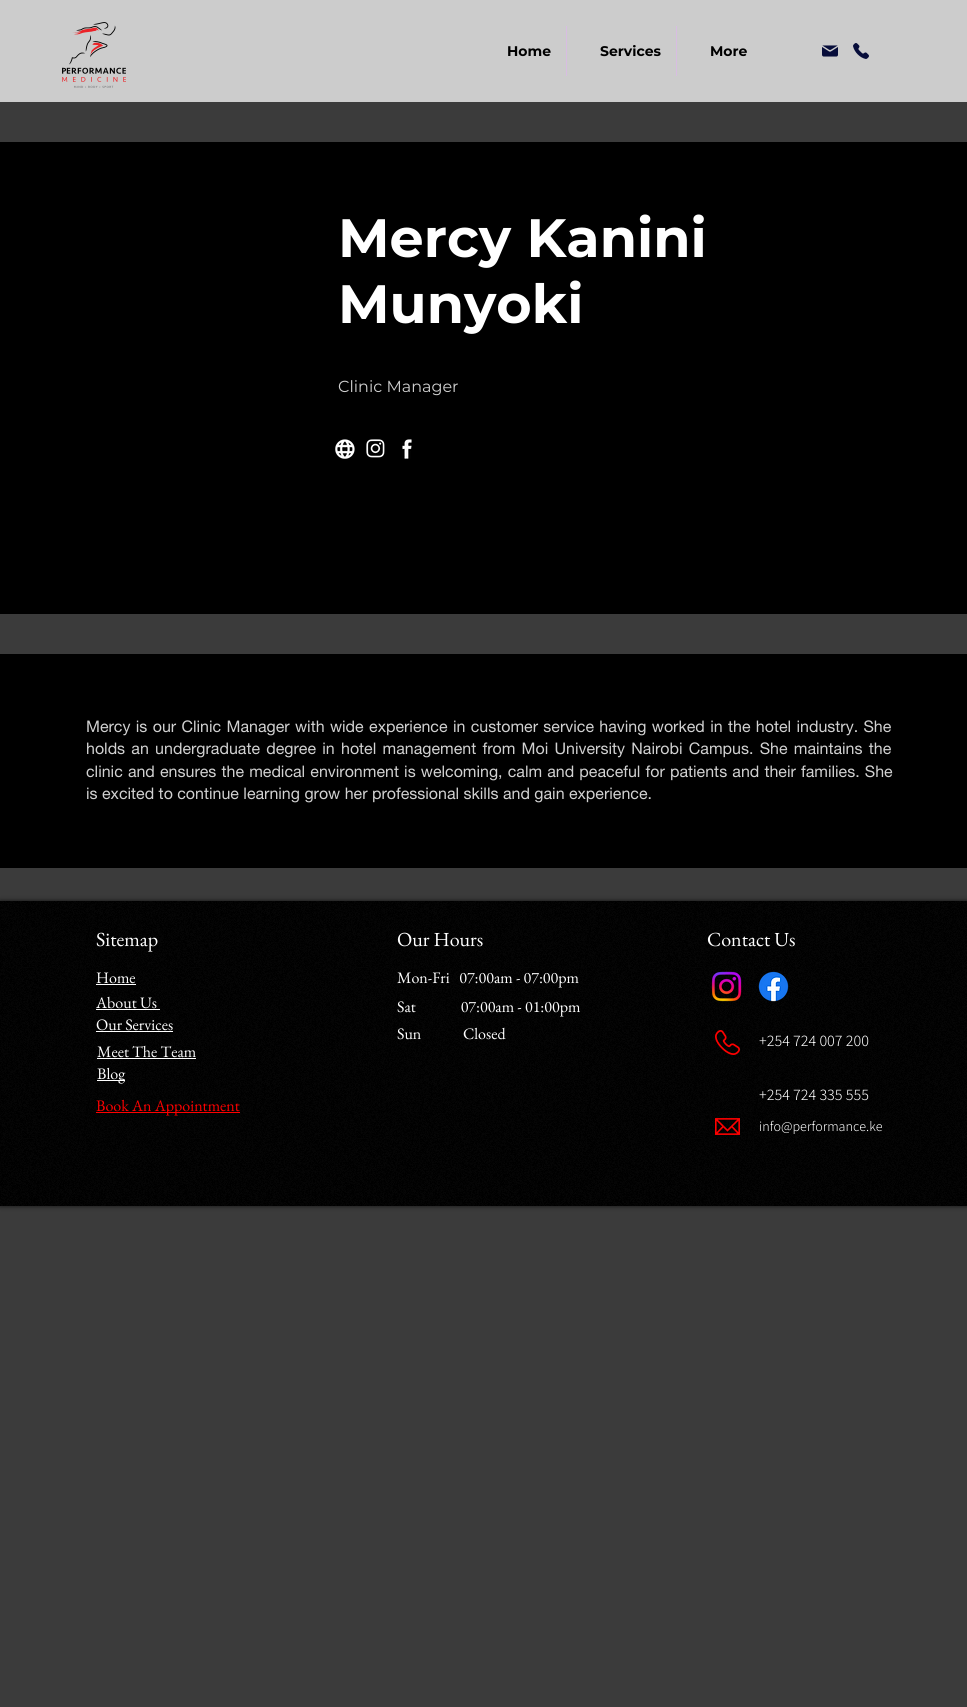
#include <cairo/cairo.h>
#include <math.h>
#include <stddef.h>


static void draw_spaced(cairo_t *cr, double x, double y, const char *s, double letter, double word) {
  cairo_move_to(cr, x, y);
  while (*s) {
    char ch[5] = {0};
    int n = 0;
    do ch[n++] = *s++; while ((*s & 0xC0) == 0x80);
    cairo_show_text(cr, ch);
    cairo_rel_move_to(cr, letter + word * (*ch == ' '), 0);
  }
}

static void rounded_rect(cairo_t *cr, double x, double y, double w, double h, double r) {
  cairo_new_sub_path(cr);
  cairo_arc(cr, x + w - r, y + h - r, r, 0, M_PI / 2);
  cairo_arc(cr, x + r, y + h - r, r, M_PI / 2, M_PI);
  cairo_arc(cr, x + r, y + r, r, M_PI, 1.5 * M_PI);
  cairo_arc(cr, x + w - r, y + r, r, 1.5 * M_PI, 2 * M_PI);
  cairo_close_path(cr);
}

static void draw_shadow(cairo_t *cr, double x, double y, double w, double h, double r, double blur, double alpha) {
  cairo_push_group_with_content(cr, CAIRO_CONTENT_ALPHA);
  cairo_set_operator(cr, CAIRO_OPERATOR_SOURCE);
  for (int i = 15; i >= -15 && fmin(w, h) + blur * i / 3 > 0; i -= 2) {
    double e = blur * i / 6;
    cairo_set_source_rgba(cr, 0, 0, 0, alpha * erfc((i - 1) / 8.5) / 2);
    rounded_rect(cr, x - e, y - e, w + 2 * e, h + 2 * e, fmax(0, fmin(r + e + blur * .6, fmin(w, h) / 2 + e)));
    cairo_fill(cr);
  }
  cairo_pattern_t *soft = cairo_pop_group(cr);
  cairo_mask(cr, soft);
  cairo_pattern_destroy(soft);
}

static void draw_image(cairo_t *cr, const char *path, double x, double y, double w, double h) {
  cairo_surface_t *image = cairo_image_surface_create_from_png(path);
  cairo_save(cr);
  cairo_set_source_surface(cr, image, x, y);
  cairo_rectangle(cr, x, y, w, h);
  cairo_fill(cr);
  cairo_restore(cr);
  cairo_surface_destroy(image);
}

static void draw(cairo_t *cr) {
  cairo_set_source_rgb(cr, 59 / 255.0, 59 / 255.0, 59 / 255.0);
  cairo_paint(cr);
  cairo_set_source_rgb(cr, 204 / 255.0, 204 / 255.0, 204 / 255.0);
  cairo_rectangle(cr, 0, 0, 967, 102);
  cairo_fill(cr);
  draw_image(cr, "images/1.png", 62, 22, 64, 66);
  cairo_set_source_rgb(cr, 216 / 255.0, 189 / 255.0, 226 / 255.0);
  cairo_rectangle(cr, 566, 26, 1, 50);
  cairo_fill(cr);
  cairo_rectangle(cr, 676, 26, 1, 50);
  cairo_fill(cr);
  draw_image(cr, "images/2.png", 822, 45, 16, 12);
  draw_image(cr, "images/3.png", 853, 43, 16, 16);
  cairo_set_source_rgb(cr, 0, 0, 0);
  cairo_rectangle(cr, 0, 142, 967, 472);
  cairo_fill(cr);
  draw_image(cr, "images/4.png", 335, 439, 20, 20);
  draw_image(cr, "images/5.png", 366, 439, 19, 19);
  draw_image(cr, "images/6.png", 402, 439, 10, 20);
  cairo_rectangle(cr, 0, 654, 967, 214);
  cairo_fill(cr);
  cairo_set_source_rgb(cr, 0, 0, 0);
  draw_shadow(cr, 0, 901, 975, 305, 0, 2.5, 0.7);
  cairo_set_source_rgb(cr, 0, 0, 0);
  cairo_rectangle(cr, 0, 901, 967, 305);
  cairo_fill(cr);
  draw_image(cr, "images/7.png", 0, 901, 967, 305);
  cairo_set_source_rgb(cr, 1, 1, 1);
  cairo_rectangle(cr, 96, 984, 40, 1);
  cairo_fill(cr);
  cairo_rectangle(cr, 96, 1009, 64, 1);
  cairo_fill(cr);
  cairo_rectangle(cr, 96, 1031, 77, 1);
  cairo_fill(cr);
  cairo_rectangle(cr, 97, 1058, 99, 1);
  cairo_fill(cr);
  cairo_rectangle(cr, 97, 1080, 28, 1);
  cairo_fill(cr);
  cairo_set_source_rgb(cr, 1, 0, 0);
  cairo_rectangle(cr, 96, 1112, 144, 1);
  cairo_fill(cr);
  draw_image(cr, "images/8.png", 711, 971, 31, 31);
  draw_image(cr, "images/9.png", 758, 971, 31, 31);
  draw_image(cr, "images/10.png", 715, 1030, 25, 25);
  draw_image(cr, "images/11.png", 715, 1118, 25, 17);
  cairo_select_font_face(cr, "Montserrat", CAIRO_FONT_SLANT_NORMAL, CAIRO_FONT_WEIGHT_BOLD);
  cairo_set_font_size(cr, 14);
  cairo_set_source_rgb(cr, 0, 0, 0);
  cairo_move_to(cr, 507, 56);
  cairo_show_text(cr, "Home");
  cairo_move_to(cr, 600, 56);
  cairo_show_text(cr, "Services");
  cairo_move_to(cr, 710, 56);
  cairo_show_text(cr, "More");
  cairo_set_font_size(cr, 54);
  cairo_set_source_rgb(cr, 1, 1, 1);
  cairo_move_to(cr, 338, 257);
  cairo_show_text(cr, "Mercy Kanini");
  cairo_move_to(cr, 338, 323);
  cairo_show_text(cr, "Munyoki");
  cairo_select_font_face(cr, "Montserrat", CAIRO_FONT_SLANT_NORMAL, CAIRO_FONT_WEIGHT_NORMAL);
  cairo_set_font_size(cr, 16);
  cairo_set_source_rgb(cr, 209 / 255.0, 209 / 255.0, 209 / 255.0);
  cairo_move_to(cr, 338, 392);
  cairo_show_text(cr, "Clinic Manager");
  cairo_select_font_face(cr, "helvetica neue", CAIRO_FONT_SLANT_NORMAL, CAIRO_FONT_WEIGHT_NORMAL);
  draw_spaced(cr, 86, 732, "Mercy is our Clinic Manager with wide experience in customer service having worked in the hotel industry. She", 0, 0.9);
  draw_spaced(cr, 86, 754, "holds an undergraduate degree in hotel management from Moi University Nairobi Campus. She maintains the", 0, 1.8);
  draw_spaced(cr, 86, 777, "clinic and ensures the medical environment is welcoming, calm and peaceful for patients and their families. She", 0, 0.7);
  cairo_move_to(cr, 86, 799);
  cairo_show_text(cr, "is excited to continue learning grow her professional skills and gain experience.");
  cairo_select_font_face(cr, "EB Garamond", CAIRO_FONT_SLANT_NORMAL, CAIRO_FONT_WEIGHT_NORMAL);
  cairo_set_font_size(cr, 20);
  cairo_set_source_rgb(cr, 1, 1, 1);
  cairo_move_to(cr, 96, 946);
  cairo_show_text(cr, "Sitemap");
  cairo_set_font_size(cr, 16);
  cairo_move_to(cr, 96, 983);
  cairo_show_text(cr, "Home");
  cairo_move_to(cr, 96, 1008);
  cairo_show_text(cr, "About Us");
  cairo_move_to(cr, 96, 1030);
  cairo_show_text(cr, "Our Services");
  cairo_move_to(cr, 97, 1057);
  cairo_show_text(cr, "Meet The Team");
  cairo_move_to(cr, 97, 1079);
  cairo_show_text(cr, "Blog");
  cairo_set_source_rgb(cr, 1, 0, 0);
  cairo_move_to(cr, 96, 1111);
  cairo_show_text(cr, "Book An Appointment");
  cairo_set_font_size(cr, 20);
  cairo_set_source_rgb(cr, 1, 1, 1);
  cairo_move_to(cr, 397, 946);
  cairo_show_text(cr, "Our Hours");
  cairo_set_font_size(cr, 16);
  cairo_move_to(cr, 397, 983);
  cairo_show_text(cr, "Mon-Fri   07:00am - 07:00pm");
  cairo_move_to(cr, 397, 1012);
  cairo_show_text(cr, "Sat              07:00am - 01:00pm");
  cairo_move_to(cr, 397, 1039);
  cairo_show_text(cr, "Sun             Closed");
  cairo_set_font_size(cr, 20);
  cairo_move_to(cr, 707, 946);
  cairo_show_text(cr, "Contact Us");
  cairo_select_font_face(cr, "Assistant Light", CAIRO_FONT_SLANT_NORMAL, CAIRO_FONT_WEIGHT_NORMAL);
  cairo_set_font_size(cr, 16);
  cairo_move_to(cr, 759, 1046);
  cairo_show_text(cr, "+254 724 007 200");
  cairo_move_to(cr, 759, 1100);
  cairo_show_text(cr, "+254 724 335 555");
  cairo_set_font_size(cr, 14);
  cairo_move_to(cr, 759, 1131);
  cairo_show_text(cr, "info@performance.ke");
}

int main(void) {
  cairo_surface_t *surface = cairo_image_surface_create(CAIRO_FORMAT_RGB24, 967, 1707);
  cairo_t *cr = cairo_create(surface);
  cairo_font_options_t *options = cairo_font_options_create();
  cairo_font_options_set_hint_metrics(options, CAIRO_HINT_METRICS_OFF);
  cairo_font_options_set_hint_style(options, CAIRO_HINT_STYLE_NONE);
  cairo_set_font_options(cr, options);
  cairo_set_miter_limit(cr, 4);
  draw(cr);
  cairo_surface_write_to_png(surface, "out.png");
  cairo_font_options_destroy(options);
  cairo_destroy(cr);
  cairo_surface_destroy(surface);
  return 0;
}
